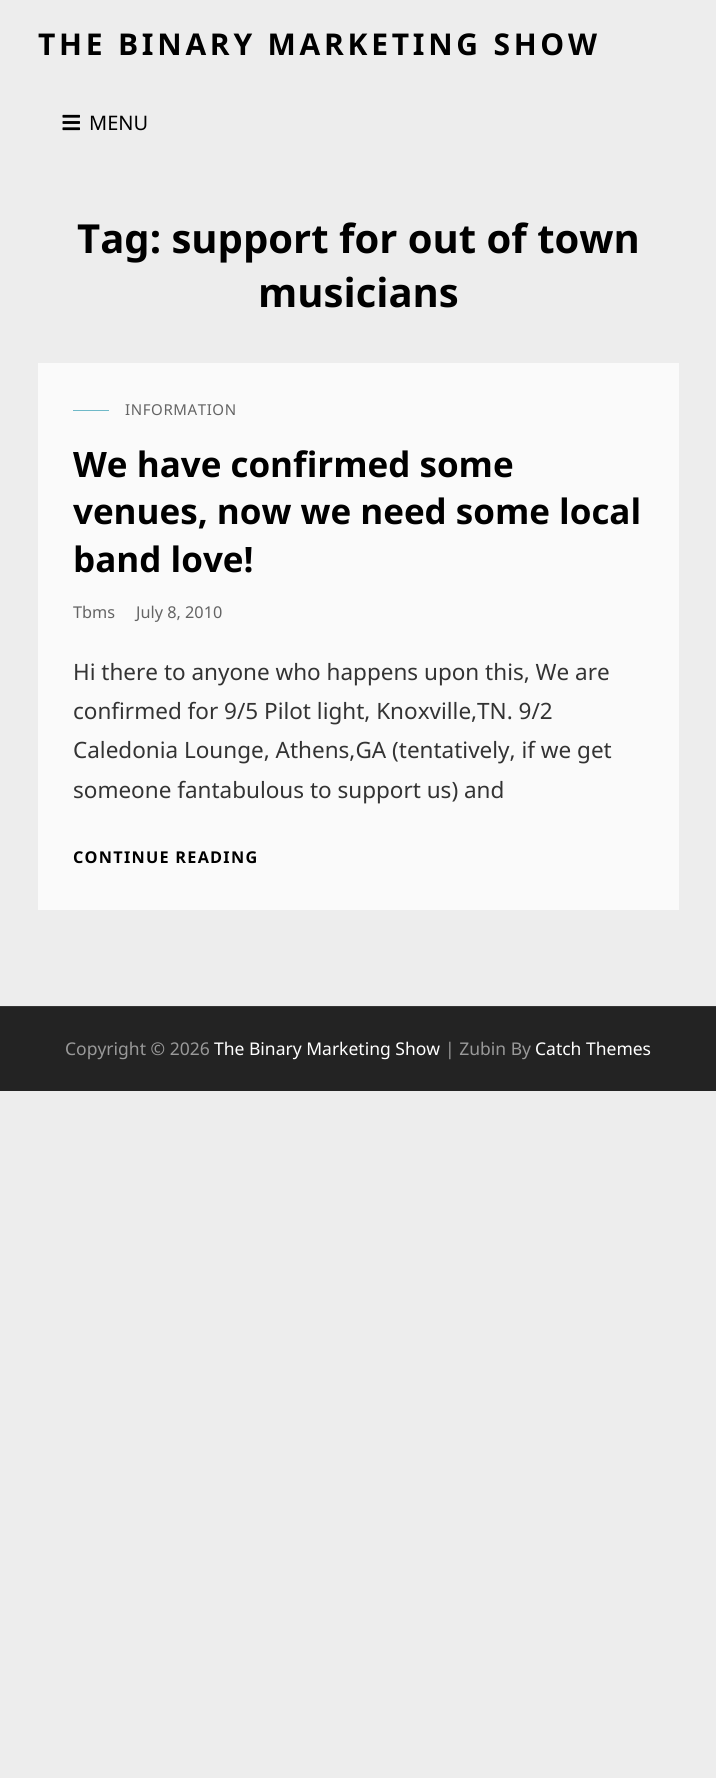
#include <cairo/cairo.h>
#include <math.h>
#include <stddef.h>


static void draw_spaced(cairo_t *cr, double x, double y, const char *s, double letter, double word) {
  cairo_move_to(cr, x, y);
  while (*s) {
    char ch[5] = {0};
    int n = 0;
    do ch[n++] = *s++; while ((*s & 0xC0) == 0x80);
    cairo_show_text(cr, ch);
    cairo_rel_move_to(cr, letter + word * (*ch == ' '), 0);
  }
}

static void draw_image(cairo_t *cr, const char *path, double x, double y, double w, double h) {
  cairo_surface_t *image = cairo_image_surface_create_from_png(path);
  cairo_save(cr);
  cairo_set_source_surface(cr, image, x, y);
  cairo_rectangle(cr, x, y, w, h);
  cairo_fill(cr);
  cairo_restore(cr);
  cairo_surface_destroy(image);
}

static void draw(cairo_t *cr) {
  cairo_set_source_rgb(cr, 237 / 255.0, 237 / 255.0, 237 / 255.0);
  cairo_paint(cr);
  draw_image(cr, "images/1.png", 62, 114, 18, 17);
  cairo_set_source_rgb(cr, 250 / 255.0, 250 / 255.0, 250 / 255.0);
  cairo_rectangle(cr, 38, 363, 641, 547);
  cairo_fill(cr);
  cairo_set_source_rgb(cr, 111 / 255.0, 185 / 255.0, 200 / 255.0);
  cairo_rectangle(cr, 73, 410, 36, 1);
  cairo_fill(cr);
  cairo_set_source_rgb(cr, 35 / 255.0, 35 / 255.0, 35 / 255.0);
  cairo_rectangle(cr, 0, 1007, 716, 84);
  cairo_fill(cr);
  cairo_set_source_rgb(cr, 54 / 255.0, 54 / 255.0, 54 / 255.0);
  cairo_rectangle(cr, 0, 1006, 716, 1);
  cairo_fill(cr);
  cairo_select_font_face(cr, "Noto Sans", CAIRO_FONT_SLANT_NORMAL, CAIRO_FONT_WEIGHT_BOLD);
  cairo_set_font_size(cr, 30);
  cairo_set_source_rgb(cr, 0, 0, 0);
  draw_spaced(cr, 38, 55, "THE BINARY MARKETING SHOW", 3.75, 0);
  cairo_select_font_face(cr, "Noto Sans", CAIRO_FONT_SLANT_NORMAL, CAIRO_FONT_WEIGHT_NORMAL);
  cairo_set_font_size(cr, 20);
  cairo_move_to(cr, 89, 130);
  cairo_show_text(cr, "MENU");
  cairo_select_font_face(cr, "Noto Sans", CAIRO_FONT_SLANT_NORMAL, CAIRO_FONT_WEIGHT_BOLD);
  cairo_set_font_size(cr, 40);
  cairo_move_to(cr, 77, 253);
  cairo_show_text(cr, "Tag: support for out of town");
  cairo_move_to(cr, 258, 307);
  cairo_show_text(cr, "musicians");
  cairo_select_font_face(cr, "Noto Sans", CAIRO_FONT_SLANT_NORMAL, CAIRO_FONT_WEIGHT_NORMAL);
  cairo_set_font_size(cr, 15);
  cairo_set_source_rgb(cr, 100 / 255.0, 100 / 255.0, 100 / 255.0);
  draw_spaced(cr, 125, 415, "INFORMATION", 0.6, 0);
  cairo_select_font_face(cr, "Noto Sans", CAIRO_FONT_SLANT_NORMAL, CAIRO_FONT_WEIGHT_BOLD);
  cairo_set_font_size(cr, 35);
  cairo_set_source_rgb(cr, 0, 0, 0);
  cairo_move_to(cr, 73, 477);
  cairo_show_text(cr, "We have confirmed some");
  cairo_move_to(cr, 73, 524);
  cairo_show_text(cr, "venues, now we need some local");
  cairo_move_to(cr, 73, 572);
  cairo_show_text(cr, "band love!");
  cairo_select_font_face(cr, "Noto Sans", CAIRO_FONT_SLANT_NORMAL, CAIRO_FONT_WEIGHT_NORMAL);
  cairo_set_font_size(cr, 16.25);
  cairo_set_source_rgb(cr, 100 / 255.0, 100 / 255.0, 100 / 255.0);
  cairo_move_to(cr, 73, 618);
  cairo_show_text(cr, "Tbms");
  cairo_move_to(cr, 136, 618);
  cairo_show_text(cr, "July 8, 2010");
  cairo_set_font_size(cr, 22.5);
  cairo_set_source_rgb(cr, 51 / 255.0, 51 / 255.0, 51 / 255.0);
  cairo_move_to(cr, 73, 680);
  cairo_show_text(cr, "Hi there to anyone who happens upon this, We are");
  cairo_move_to(cr, 73, 719);
  cairo_show_text(cr, "confirmed for 9/5 Pilot light, Knoxville,TN. 9/2");
  cairo_move_to(cr, 73, 758);
  cairo_show_text(cr, "Caledonia Lounge, Athens,GA (tentatively, if we get");
  cairo_move_to(cr, 73, 798);
  cairo_show_text(cr, "someone fantabulous to support us) and");
  cairo_select_font_face(cr, "Noto Sans", CAIRO_FONT_SLANT_NORMAL, CAIRO_FONT_WEIGHT_BOLD);
  cairo_set_font_size(cr, 16.25);
  cairo_set_source_rgb(cr, 0, 0, 0);
  draw_spaced(cr, 73, 863, "CONTINUE READING", 1.25, 0);
  cairo_select_font_face(cr, "Noto Sans", CAIRO_FONT_SLANT_NORMAL, CAIRO_FONT_WEIGHT_NORMAL);
  cairo_set_font_size(cr, 17.5);
  cairo_set_source_rgb(cr, 153 / 255.0, 153 / 255.0, 153 / 255.0);
  cairo_move_to(cr, 65, 1055);
  cairo_show_text(cr, "Copyright © 2026");
  cairo_set_source_rgb(cr, 1, 1, 1);
  cairo_move_to(cr, 214, 1055);
  cairo_show_text(cr, "The Binary Marketing Show");
  cairo_set_source_rgb(cr, 153 / 255.0, 153 / 255.0, 153 / 255.0);
  cairo_move_to(cr, 445, 1055);
  cairo_show_text(cr, "| Zubin By");
  cairo_set_source_rgb(cr, 1, 1, 1);
  cairo_move_to(cr, 535, 1055);
  cairo_show_text(cr, "Catch Themes");
}

int main(void) {
  cairo_surface_t *surface = cairo_image_surface_create(CAIRO_FORMAT_RGB24, 716, 1778);
  cairo_t *cr = cairo_create(surface);
  cairo_font_options_t *options = cairo_font_options_create();
  cairo_font_options_set_hint_metrics(options, CAIRO_HINT_METRICS_OFF);
  cairo_font_options_set_hint_style(options, CAIRO_HINT_STYLE_NONE);
  cairo_set_font_options(cr, options);
  cairo_set_miter_limit(cr, 4);
  draw(cr);
  cairo_surface_write_to_png(surface, "out.png");
  cairo_font_options_destroy(options);
  cairo_destroy(cr);
  cairo_surface_destroy(surface);
  return 0;
}
